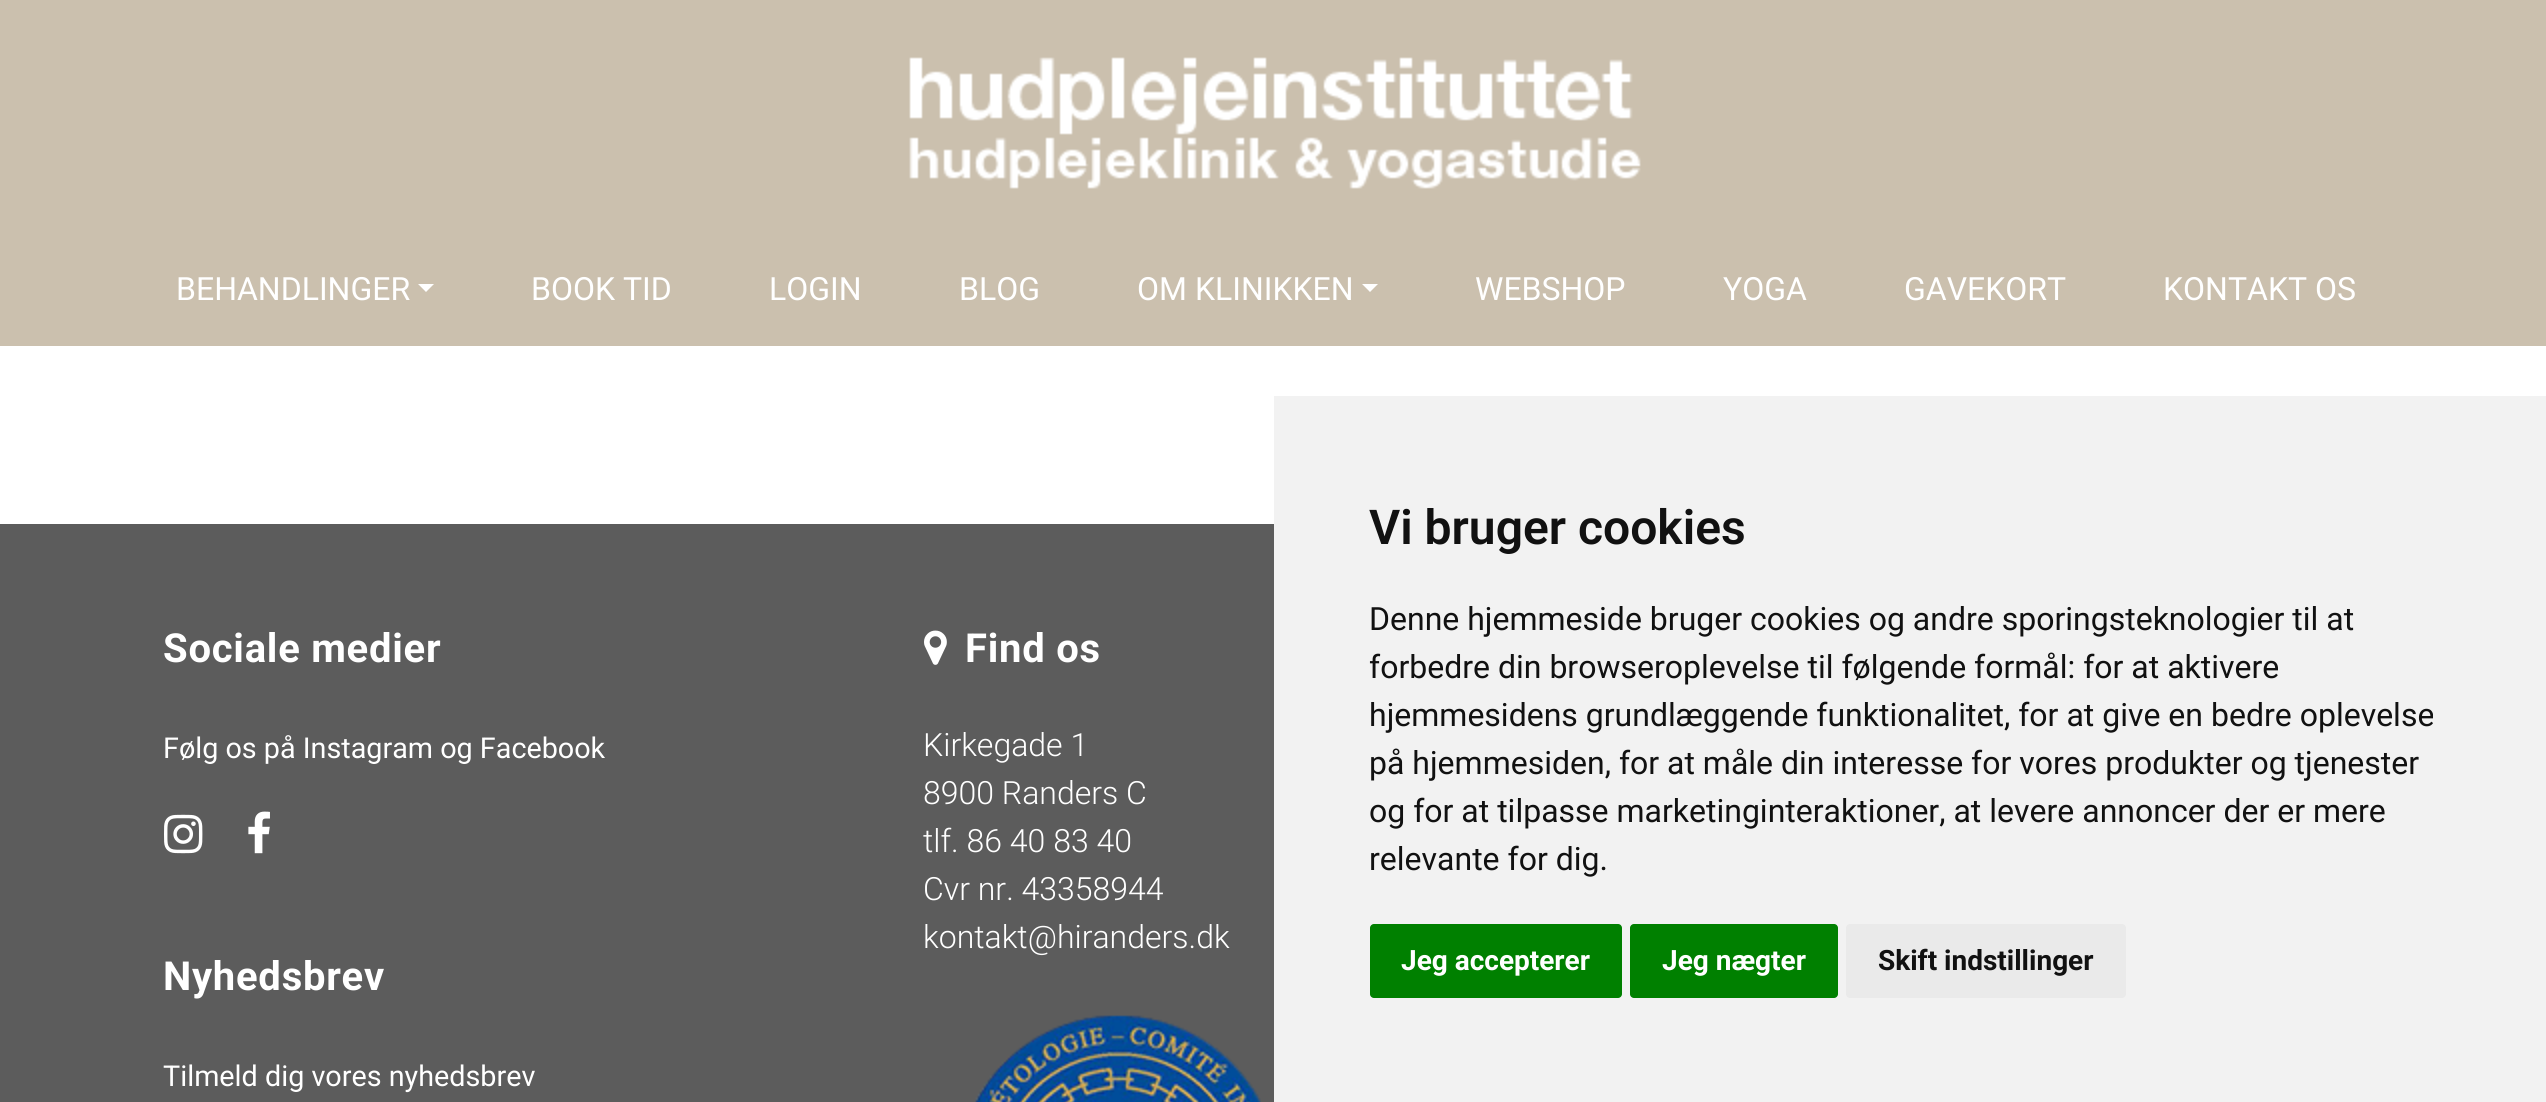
#include <cairo/cairo.h>
#include <math.h>
#include <stddef.h>


static void draw_spaced(cairo_t *cr, double x, double y, const char *s, double letter, double word) {
  cairo_move_to(cr, x, y);
  while (*s) {
    char ch[5] = {0};
    int n = 0;
    do ch[n++] = *s++; while ((*s & 0xC0) == 0x80);
    cairo_show_text(cr, ch);
    cairo_rel_move_to(cr, letter + word * (*ch == ' '), 0);
  }
}

static void rounded_rect(cairo_t *cr, double x, double y, double w, double h, double r) {
  cairo_new_sub_path(cr);
  cairo_arc(cr, x + w - r, y + h - r, r, 0, M_PI / 2);
  cairo_arc(cr, x + r, y + h - r, r, M_PI / 2, M_PI);
  cairo_arc(cr, x + r, y + r, r, M_PI, 1.5 * M_PI);
  cairo_arc(cr, x + w - r, y + r, r, 1.5 * M_PI, 2 * M_PI);
  cairo_close_path(cr);
}

static void draw_image(cairo_t *cr, const char *path, double x, double y, double w, double h) {
  cairo_surface_t *image = cairo_image_surface_create_from_png(path);
  cairo_save(cr);
  cairo_set_source_surface(cr, image, x, y);
  cairo_rectangle(cr, x, y, w, h);
  cairo_fill(cr);
  cairo_restore(cr);
  cairo_surface_destroy(image);
}

static void draw(cairo_t *cr) {
  cairo_set_source_rgb(cr, 1, 1, 1);
  cairo_paint(cr);
  cairo_set_source_rgb(cr, 203 / 255.0, 192 / 255.0, 174 / 255.0);
  cairo_rectangle(cr, 0, 0, 2546, 346);
  cairo_fill(cr);
  draw_image(cr, "images/1.png", 909, 57, 732, 132);
  cairo_set_source_rgb(cr, 1, 1, 1);
  cairo_new_path(cr);
  cairo_move_to(cr, 418, 284);
  cairo_line_to(cr, 434, 284);
  cairo_line_to(cr, 426, 292);
  cairo_close_path(cr);
  cairo_fill(cr);
  cairo_new_path(cr);
  cairo_move_to(cr, 1362, 284);
  cairo_line_to(cr, 1378, 284);
  cairo_line_to(cr, 1370, 292);
  cairo_close_path(cr);
  cairo_fill(cr);
  cairo_set_source_rgb(cr, 92 / 255.0, 92 / 255.0, 92 / 255.0);
  cairo_rectangle(cr, 0, 524, 1274, 578);
  cairo_fill(cr);
  draw_image(cr, "images/2.png", 164, 814, 39, 40);
  draw_image(cr, "images/3.png", 248, 811, 22, 43);
  draw_image(cr, "images/4.png", 924, 630, 23, 35);
  draw_image(cr, "images/5.png", 974, 1015, 287, 87);
  cairo_set_source_rgb(cr, 242 / 255.0, 242 / 255.0, 242 / 255.0);
  cairo_rectangle(cr, 1274, 396, 1272, 706);
  cairo_fill(cr);
  cairo_set_source_rgb(cr, 0, 128 / 255.0, 0);
  rounded_rect(cr, 1370, 924, 252, 74, 4);
  cairo_fill(cr);
  rounded_rect(cr, 1630, 924, 208, 74, 4);
  cairo_fill(cr);
  cairo_set_source_rgb(cr, 234 / 255.0, 234 / 255.0, 234 / 255.0);
  rounded_rect(cr, 1846, 924, 280, 74, 4);
  cairo_fill(cr);
  cairo_select_font_face(cr, "Roboto", CAIRO_FONT_SLANT_NORMAL, CAIRO_FONT_WEIGHT_NORMAL);
  cairo_set_font_size(cr, 32);
  cairo_set_source_rgb(cr, 1, 1, 1);
  cairo_move_to(cr, 176, 300);
  cairo_show_text(cr, "BEHANDLINGER");
  cairo_move_to(cr, 531, 300);
  cairo_show_text(cr, "BOOK TID");
  cairo_move_to(cr, 769, 300);
  cairo_show_text(cr, "LOGIN");
  cairo_move_to(cr, 959, 300);
  cairo_show_text(cr, "BLOG");
  cairo_move_to(cr, 1137, 300);
  cairo_show_text(cr, "OM KLINIKKEN");
  cairo_move_to(cr, 1475, 300);
  cairo_show_text(cr, "WEBSHOP");
  cairo_move_to(cr, 1723, 300);
  cairo_show_text(cr, "YOGA");
  cairo_move_to(cr, 1904, 300);
  cairo_show_text(cr, "GAVEKORT");
  cairo_move_to(cr, 2163, 300);
  cairo_show_text(cr, "KONTAKT OS");
  cairo_select_font_face(cr, "Roboto", CAIRO_FONT_SLANT_NORMAL, CAIRO_FONT_WEIGHT_BOLD);
  cairo_set_font_size(cr, 40);
  draw_spaced(cr, 163, 662, "Sociale medier", 0.75, 0);
  cairo_select_font_face(cr, "Roboto", CAIRO_FONT_SLANT_NORMAL, CAIRO_FONT_WEIGHT_NORMAL);
  cairo_set_font_size(cr, 28.75);
  cairo_move_to(cr, 163, 758);
  cairo_show_text(cr, "Følg os på Instagram og Facebook");
  cairo_select_font_face(cr, "Roboto", CAIRO_FONT_SLANT_NORMAL, CAIRO_FONT_WEIGHT_BOLD);
  cairo_set_font_size(cr, 40);
  draw_spaced(cr, 163, 990, "Nyhedsbrev", 0.75, 0);
  cairo_select_font_face(cr, "Roboto", CAIRO_FONT_SLANT_NORMAL, CAIRO_FONT_WEIGHT_NORMAL);
  cairo_set_font_size(cr, 28.75);
  cairo_move_to(cr, 163, 1086);
  cairo_show_text(cr, "Tilmeld dig vores nyhedsbrev");
  cairo_select_font_face(cr, "Roboto", CAIRO_FONT_SLANT_NORMAL, CAIRO_FONT_WEIGHT_BOLD);
  cairo_set_font_size(cr, 40);
  draw_spaced(cr, 965, 662, "Find os", 0.75, 0);
  cairo_select_font_face(cr, "Roboto Light", CAIRO_FONT_SLANT_NORMAL, CAIRO_FONT_WEIGHT_NORMAL);
  cairo_set_font_size(cr, 32);
  cairo_move_to(cr, 923, 756);
  cairo_show_text(cr, "Kirkegade 1");
  cairo_move_to(cr, 923, 804);
  cairo_show_text(cr, "8900 Randers C");
  cairo_move_to(cr, 923, 852);
  cairo_show_text(cr, "tlf. 86 40 83 40");
  cairo_move_to(cr, 923, 900);
  cairo_show_text(cr, "Cvr nr. 43358944");
  cairo_move_to(cr, 923, 948);
  cairo_show_text(cr, "kontakt@hiranders.dk");
  cairo_select_font_face(cr, "Roboto SemiBold", CAIRO_FONT_SLANT_NORMAL, CAIRO_FONT_WEIGHT_NORMAL);
  cairo_set_font_size(cr, 48);
  cairo_set_source_rgb(cr, 17 / 255.0, 17 / 255.0, 17 / 255.0);
  cairo_move_to(cr, 1369, 544);
  cairo_show_text(cr, "Vi bruger cookies");
  cairo_select_font_face(cr, "Roboto", CAIRO_FONT_SLANT_NORMAL, CAIRO_FONT_WEIGHT_NORMAL);
  cairo_set_font_size(cr, 32);
  cairo_move_to(cr, 1369, 630);
  cairo_show_text(cr, "Denne hjemmeside bruger cookies og andre sporingsteknologier til at");
  cairo_move_to(cr, 1369, 678);
  cairo_show_text(cr, "forbedre din browseroplevelse til følgende formål: for at aktivere");
  cairo_move_to(cr, 1369, 726);
  cairo_show_text(cr, "hjemmesidens grundlæggende funktionalitet, for at give en bedre oplevelse");
  cairo_move_to(cr, 1369, 774);
  cairo_show_text(cr, "på hjemmesiden, for at måle din interesse for vores produkter og tjenester");
  cairo_move_to(cr, 1369, 822);
  cairo_show_text(cr, "og for at tilpasse marketinginteraktioner, at levere annoncer der er mere");
  cairo_move_to(cr, 1369, 870);
  cairo_show_text(cr, "relevante for dig.");
  cairo_select_font_face(cr, "Roboto", CAIRO_FONT_SLANT_NORMAL, CAIRO_FONT_WEIGHT_BOLD);
  cairo_set_font_size(cr, 28);
  cairo_set_source_rgb(cr, 1, 1, 1);
  cairo_move_to(cr, 1401, 970);
  cairo_show_text(cr, "Jeg accepterer");
  cairo_move_to(cr, 1662, 970);
  cairo_show_text(cr, "Jeg nægter");
  cairo_set_source_rgb(cr, 17 / 255.0, 17 / 255.0, 17 / 255.0);
  cairo_move_to(cr, 1878, 970);
  cairo_show_text(cr, "Skift indstillinger");
}

int main(void) {
  cairo_surface_t *surface = cairo_image_surface_create(CAIRO_FORMAT_RGB24, 2546, 1102);
  cairo_t *cr = cairo_create(surface);
  cairo_font_options_t *options = cairo_font_options_create();
  cairo_font_options_set_hint_metrics(options, CAIRO_HINT_METRICS_OFF);
  cairo_font_options_set_hint_style(options, CAIRO_HINT_STYLE_NONE);
  cairo_set_font_options(cr, options);
  cairo_set_miter_limit(cr, 4);
  draw(cr);
  cairo_surface_write_to_png(surface, "out.png");
  cairo_font_options_destroy(options);
  cairo_destroy(cr);
  cairo_surface_destroy(surface);
  return 0;
}
